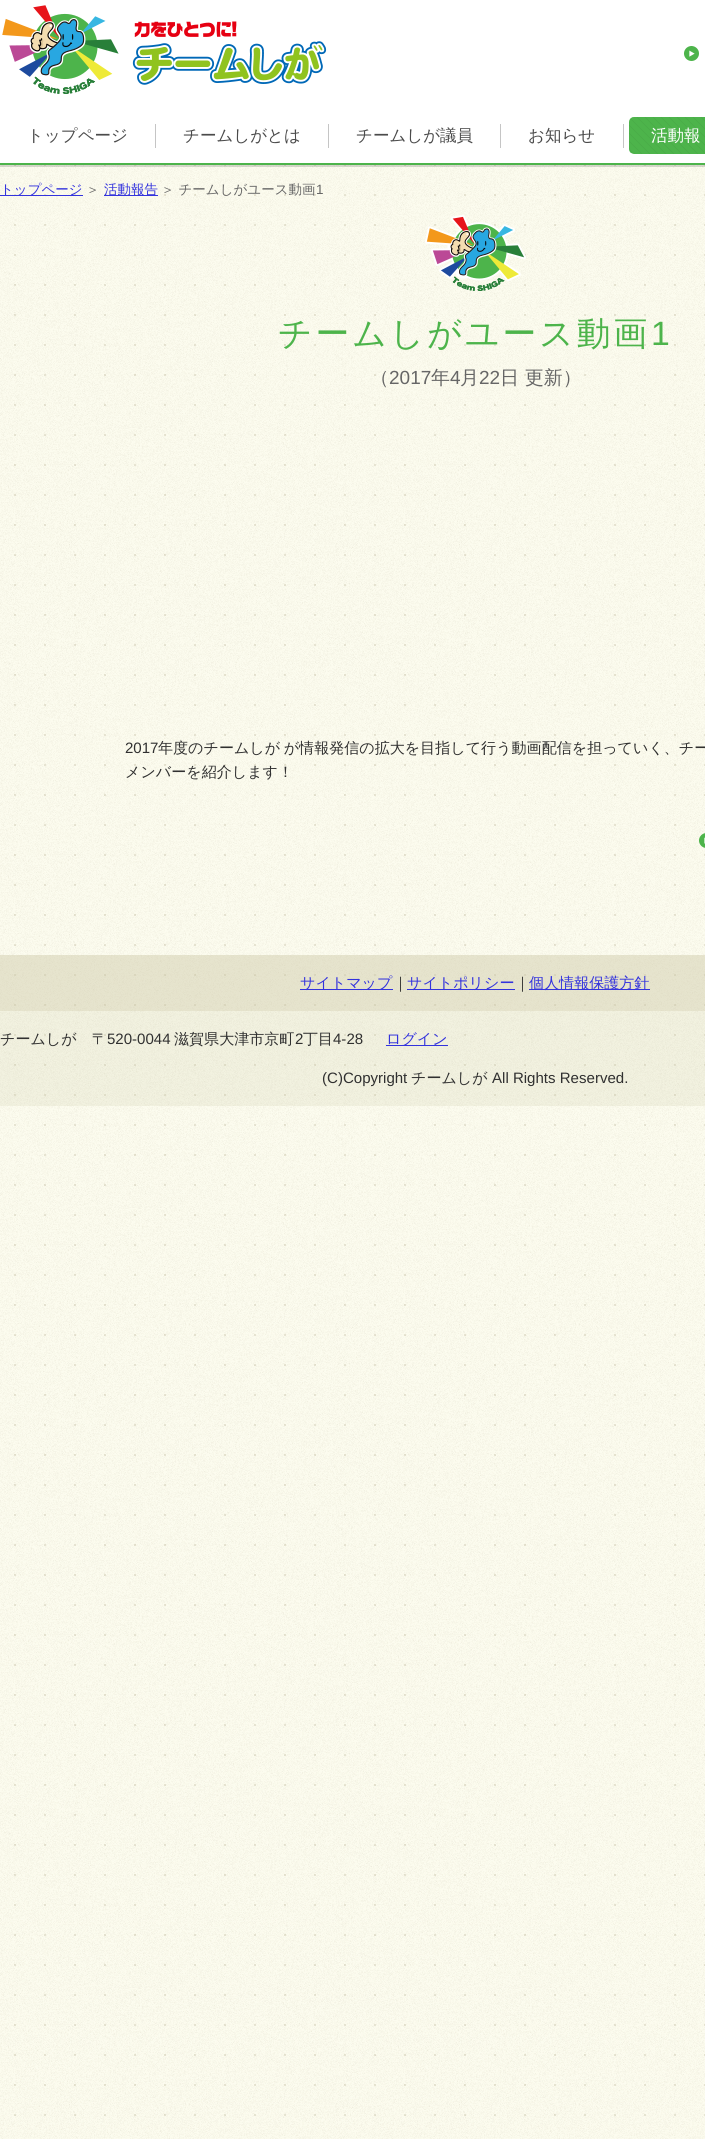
#include <cairo/cairo.h>
#include <math.h>
#include <stddef.h>


static void draw_spaced(cairo_t *cr, double x, double y, const char *s, double letter, double word) {
  cairo_move_to(cr, x, y);
  while (*s) {
    char ch[5] = {0};
    int n = 0;
    do ch[n++] = *s++; while ((*s & 0xC0) == 0x80);
    cairo_show_text(cr, ch);
    cairo_rel_move_to(cr, letter + word * (*ch == ' '), 0);
  }
}

static void draw_image(cairo_t *cr, const char *path, double x, double y, double w, double h) {
  cairo_surface_t *image = cairo_image_surface_create_from_png(path);
  cairo_save(cr);
  cairo_set_source_surface(cr, image, x, y);
  cairo_rectangle(cr, x, y, w, h);
  cairo_fill(cr);
  cairo_restore(cr);
  cairo_surface_destroy(image);
}

static void draw(cairo_t *cr) {
  cairo_set_source_rgb(cr, 1, 1, 1);
  cairo_paint(cr);
  draw_image(cr, "images/1.png", 0, 165, 705, 1974);
  draw_image(cr, "images/2.png", 2, 5, 325, 89);
  draw_image(cr, "images/3.png", 684, 46, 15, 15);
  cairo_set_source_rgba(cr, 0, 0, 0, 0.15);
  cairo_rectangle(cr, 0, 165, 705, 2);
  cairo_fill(cr);
  cairo_set_source_rgb(cr, 77 / 255.0, 180 / 255.0, 75 / 255.0);
  cairo_rectangle(cr, 0, 163, 705, 2);
  cairo_fill(cr);
  cairo_set_source_rgb(cr, 197 / 255.0, 197 / 255.0, 197 / 255.0);
  cairo_rectangle(cr, 155, 124, 1, 24);
  cairo_fill(cr);
  cairo_rectangle(cr, 328, 124, 1, 24);
  cairo_fill(cr);
  cairo_rectangle(cr, 500, 124, 1, 24);
  cairo_fill(cr);
  cairo_rectangle(cr, 623, 124, 1, 24);
  cairo_fill(cr);
  draw_image(cr, "images/4.png", 629, 117, 76, 37);
  cairo_set_source_rgb(cr, 51 / 255.0, 51 / 255.0, 221 / 255.0);
  cairo_rectangle(cr, 0, 195, 83, 1);
  cairo_fill(cr);
  cairo_rectangle(cr, 104, 195, 54, 1);
  cairo_fill(cr);
  draw_image(cr, "images/5.png", 425, 215, 101, 76);
  draw_image(cr, "images/6.png", 699, 833, 6, 15);
  cairo_set_source_rgba(cr, 203 / 255.0, 199 / 255.0, 165 / 255.0, 0.44);
  cairo_rectangle(cr, 0, 955, 705, 56);
  cairo_fill(cr);
  cairo_set_source_rgb(cr, 51 / 255.0, 51 / 255.0, 221 / 255.0);
  cairo_rectangle(cr, 300, 989, 93, 1);
  cairo_fill(cr);
  cairo_rectangle(cr, 407, 989, 108, 1);
  cairo_fill(cr);
  cairo_rectangle(cr, 529, 989, 121, 1);
  cairo_fill(cr);
  cairo_set_source_rgba(cr, 200 / 255.0, 200 / 255.0, 165 / 255.0, 0.2);
  cairo_rectangle(cr, 0, 1011, 705, 95);
  cairo_fill(cr);
  cairo_set_source_rgb(cr, 51 / 255.0, 51 / 255.0, 221 / 255.0);
  cairo_rectangle(cr, 386, 1045, 62, 1);
  cairo_fill(cr);
  cairo_select_font_face(cr, "WenQuanYi Zen Hei Medium", CAIRO_FONT_SLANT_NORMAL, CAIRO_FONT_WEIGHT_NORMAL);
  cairo_set_font_size(cr, 16.5);
  cairo_set_source_rgb(cr, 75 / 255.0, 75 / 255.0, 75 / 255.0);
  cairo_move_to(cr, 27, 141);
  cairo_show_text(cr, "トップページ");
  cairo_move_to(cr, 183, 141);
  cairo_show_text(cr, "チームしがとは");
  cairo_move_to(cr, 356, 141);
  cairo_show_text(cr, "チームしが議員");
  cairo_move_to(cr, 528, 141);
  cairo_show_text(cr, "お知らせ");
  cairo_set_source_rgb(cr, 1, 1, 1);
  cairo_move_to(cr, 651, 141);
  cairo_show_text(cr, "活動報");
  cairo_set_font_size(cr, 13.5);
  cairo_set_source_rgb(cr, 51 / 255.0, 51 / 255.0, 221 / 255.0);
  cairo_move_to(cr, 0, 194);
  cairo_show_text(cr, "トップページ");
  cairo_set_source_rgb(cr, 102 / 255.0, 102 / 255.0, 102 / 255.0);
  cairo_move_to(cr, 86, 194);
  cairo_show_text(cr, "＞");
  cairo_set_source_rgb(cr, 51 / 255.0, 51 / 255.0, 221 / 255.0);
  cairo_move_to(cr, 104, 194);
  cairo_show_text(cr, "活動報告");
  cairo_set_source_rgb(cr, 102 / 255.0, 102 / 255.0, 102 / 255.0);
  cairo_move_to(cr, 161, 194);
  cairo_show_text(cr, "＞ チームしがユース動画");
  cairo_select_font_face(cr, "Liberation Sans", CAIRO_FONT_SLANT_NORMAL, CAIRO_FONT_WEIGHT_NORMAL);
  cairo_move_to(cr, 316, 194);
  cairo_show_text(cr, "1");
  cairo_select_font_face(cr, "WenQuanYi Zen Hei Medium", CAIRO_FONT_SLANT_NORMAL, CAIRO_FONT_WEIGHT_NORMAL);
  cairo_set_font_size(cr, 33.75);
  cairo_set_source_rgb(cr, 77 / 255.0, 180 / 255.0, 75 / 255.0);
  draw_spaced(cr, 278, 345, "チームしがユース動画", 3, 0);
  cairo_select_font_face(cr, "Liberation Sans", CAIRO_FONT_SLANT_NORMAL, CAIRO_FONT_WEIGHT_NORMAL);
  draw_spaced(cr, 651, 345, "1", 3, 0);
  cairo_select_font_face(cr, "WenQuanYi Zen Hei Medium", CAIRO_FONT_SLANT_NORMAL, CAIRO_FONT_WEIGHT_NORMAL);
  cairo_set_font_size(cr, 19);
  cairo_set_source_rgb(cr, 102 / 255.0, 102 / 255.0, 102 / 255.0);
  cairo_move_to(cr, 370, 384);
  cairo_show_text(cr, "（");
  cairo_select_font_face(cr, "Liberation Sans", CAIRO_FONT_SLANT_NORMAL, CAIRO_FONT_WEIGHT_NORMAL);
  cairo_move_to(cr, 389, 384);
  cairo_show_text(cr, "2017");
  cairo_select_font_face(cr, "WenQuanYi Zen Hei Medium", CAIRO_FONT_SLANT_NORMAL, CAIRO_FONT_WEIGHT_NORMAL);
  cairo_move_to(cr, 431, 384);
  cairo_show_text(cr, "年");
  cairo_select_font_face(cr, "Liberation Sans", CAIRO_FONT_SLANT_NORMAL, CAIRO_FONT_WEIGHT_NORMAL);
  cairo_move_to(cr, 450, 384);
  cairo_show_text(cr, "4");
  cairo_select_font_face(cr, "WenQuanYi Zen Hei Medium", CAIRO_FONT_SLANT_NORMAL, CAIRO_FONT_WEIGHT_NORMAL);
  cairo_move_to(cr, 460, 384);
  cairo_show_text(cr, "月");
  cairo_select_font_face(cr, "Liberation Sans", CAIRO_FONT_SLANT_NORMAL, CAIRO_FONT_WEIGHT_NORMAL);
  cairo_move_to(cr, 479, 384);
  cairo_show_text(cr, "22");
  cairo_select_font_face(cr, "WenQuanYi Zen Hei Medium", CAIRO_FONT_SLANT_NORMAL, CAIRO_FONT_WEIGHT_NORMAL);
  cairo_move_to(cr, 500, 384);
  cairo_show_text(cr, "日 更新）");
  cairo_select_font_face(cr, "Liberation Sans", CAIRO_FONT_SLANT_NORMAL, CAIRO_FONT_WEIGHT_NORMAL);
  cairo_set_font_size(cr, 15.05);
  cairo_set_source_rgb(cr, 48 / 255.0, 48 / 255.0, 48 / 255.0);
  cairo_move_to(cr, 125, 753);
  cairo_show_text(cr, "2017");
  cairo_select_font_face(cr, "WenQuanYi Zen Hei Medium", CAIRO_FONT_SLANT_NORMAL, CAIRO_FONT_WEIGHT_NORMAL);
  draw_spaced(cr, 158, 753, "年度のチームしが が情報発信の拡大を目指して行う動画配信を担っていく、チー", 0, -1);
  cairo_move_to(cr, 125, 777);
  cairo_show_text(cr, "メンバーを紹介します！");
  cairo_set_source_rgb(cr, 51 / 255.0, 51 / 255.0, 221 / 255.0);
  cairo_move_to(cr, 300, 988);
  cairo_show_text(cr, "サイトマップ");
  cairo_set_source_rgb(cr, 48 / 255.0, 48 / 255.0, 48 / 255.0);
  cairo_move_to(cr, 393, 988);
  cairo_show_text(cr, "｜");
  cairo_set_source_rgb(cr, 51 / 255.0, 51 / 255.0, 221 / 255.0);
  cairo_move_to(cr, 407, 988);
  cairo_show_text(cr, "サイトポリシー");
  cairo_set_source_rgb(cr, 48 / 255.0, 48 / 255.0, 48 / 255.0);
  cairo_move_to(cr, 515, 988);
  cairo_show_text(cr, "｜");
  cairo_set_source_rgb(cr, 51 / 255.0, 51 / 255.0, 221 / 255.0);
  cairo_move_to(cr, 529, 988);
  cairo_show_text(cr, "個人情報保護方針");
  cairo_set_source_rgb(cr, 48 / 255.0, 48 / 255.0, 48 / 255.0);
  cairo_move_to(cr, 0, 1044);
  cairo_show_text(cr, "チームしが　〒");
  cairo_select_font_face(cr, "Liberation Sans", CAIRO_FONT_SLANT_NORMAL, CAIRO_FONT_WEIGHT_NORMAL);
  cairo_move_to(cr, 107, 1044);
  cairo_show_text(cr, "520-0044");
  cairo_select_font_face(cr, "WenQuanYi Zen Hei Medium", CAIRO_FONT_SLANT_NORMAL, CAIRO_FONT_WEIGHT_NORMAL);
  cairo_move_to(cr, 174, 1044);
  cairo_show_text(cr, "滋賀県大津市京町");
  cairo_select_font_face(cr, "Liberation Sans", CAIRO_FONT_SLANT_NORMAL, CAIRO_FONT_WEIGHT_NORMAL);
  cairo_move_to(cr, 295, 1044);
  cairo_show_text(cr, "2");
  cairo_select_font_face(cr, "WenQuanYi Zen Hei Medium", CAIRO_FONT_SLANT_NORMAL, CAIRO_FONT_WEIGHT_NORMAL);
  cairo_move_to(cr, 303, 1044);
  cairo_show_text(cr, "丁目");
  cairo_select_font_face(cr, "Liberation Sans", CAIRO_FONT_SLANT_NORMAL, CAIRO_FONT_WEIGHT_NORMAL);
  cairo_move_to(cr, 333, 1044);
  cairo_show_text(cr, "4-28");
  cairo_select_font_face(cr, "WenQuanYi Zen Hei Medium", CAIRO_FONT_SLANT_NORMAL, CAIRO_FONT_WEIGHT_NORMAL);
  cairo_set_source_rgb(cr, 51 / 255.0, 51 / 255.0, 221 / 255.0);
  cairo_move_to(cr, 386, 1044);
  cairo_show_text(cr, "ログイン");
  cairo_select_font_face(cr, "Liberation Sans", CAIRO_FONT_SLANT_NORMAL, CAIRO_FONT_WEIGHT_NORMAL);
  cairo_set_source_rgb(cr, 48 / 255.0, 48 / 255.0, 48 / 255.0);
  cairo_move_to(cr, 322, 1083);
  cairo_show_text(cr, "(C)Copyright");
  cairo_select_font_face(cr, "WenQuanYi Zen Hei Medium", CAIRO_FONT_SLANT_NORMAL, CAIRO_FONT_WEIGHT_NORMAL);
  cairo_move_to(cr, 411, 1083);
  cairo_show_text(cr, "チームしが");
  cairo_select_font_face(cr, "Liberation Sans", CAIRO_FONT_SLANT_NORMAL, CAIRO_FONT_WEIGHT_NORMAL);
  cairo_move_to(cr, 492, 1083);
  cairo_show_text(cr, "All Rights Reserved.");
}

int main(void) {
  cairo_surface_t *surface = cairo_image_surface_create(CAIRO_FORMAT_RGB24, 705, 2139);
  cairo_t *cr = cairo_create(surface);
  cairo_font_options_t *options = cairo_font_options_create();
  cairo_font_options_set_hint_metrics(options, CAIRO_HINT_METRICS_OFF);
  cairo_font_options_set_hint_style(options, CAIRO_HINT_STYLE_NONE);
  cairo_set_font_options(cr, options);
  cairo_set_miter_limit(cr, 4);
  draw(cr);
  cairo_surface_write_to_png(surface, "out.png");
  cairo_font_options_destroy(options);
  cairo_destroy(cr);
  cairo_surface_destroy(surface);
  return 0;
}
